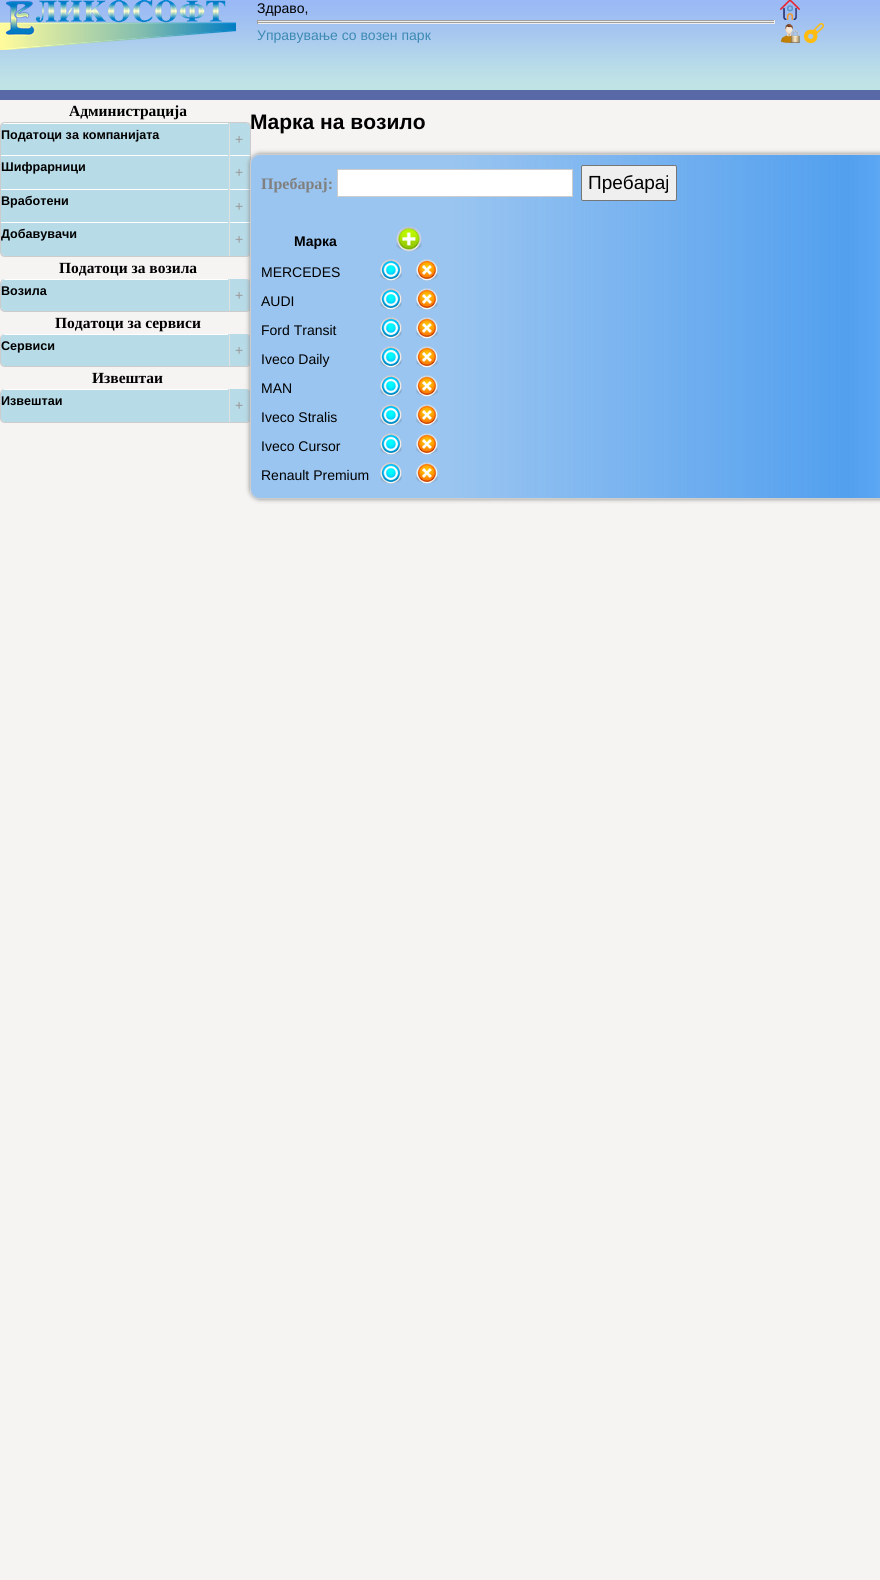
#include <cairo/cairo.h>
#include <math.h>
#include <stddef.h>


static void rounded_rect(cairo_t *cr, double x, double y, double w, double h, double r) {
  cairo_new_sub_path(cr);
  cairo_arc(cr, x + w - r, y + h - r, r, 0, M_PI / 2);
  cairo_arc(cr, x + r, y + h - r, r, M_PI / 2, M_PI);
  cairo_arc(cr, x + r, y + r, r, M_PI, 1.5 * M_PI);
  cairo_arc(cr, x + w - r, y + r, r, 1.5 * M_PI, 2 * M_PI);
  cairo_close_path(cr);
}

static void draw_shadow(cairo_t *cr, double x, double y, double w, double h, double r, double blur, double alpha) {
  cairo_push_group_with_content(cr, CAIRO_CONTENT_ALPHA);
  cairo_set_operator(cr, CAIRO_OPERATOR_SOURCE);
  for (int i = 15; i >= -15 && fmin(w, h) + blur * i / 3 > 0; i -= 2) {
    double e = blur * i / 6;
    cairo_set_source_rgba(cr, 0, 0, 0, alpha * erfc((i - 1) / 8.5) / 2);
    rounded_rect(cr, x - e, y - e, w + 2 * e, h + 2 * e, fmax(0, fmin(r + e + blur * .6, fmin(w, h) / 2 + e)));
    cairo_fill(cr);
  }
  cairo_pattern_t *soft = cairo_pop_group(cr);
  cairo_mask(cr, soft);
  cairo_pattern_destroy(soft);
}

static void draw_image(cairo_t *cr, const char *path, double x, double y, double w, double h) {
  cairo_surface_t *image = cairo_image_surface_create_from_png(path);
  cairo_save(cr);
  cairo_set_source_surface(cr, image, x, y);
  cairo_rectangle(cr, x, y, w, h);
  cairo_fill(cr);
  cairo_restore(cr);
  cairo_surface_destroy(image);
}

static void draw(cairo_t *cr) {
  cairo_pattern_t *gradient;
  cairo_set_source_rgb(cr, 245 / 255.0, 244 / 255.0, 243 / 255.0);
  cairo_paint(cr);
  draw_image(cr, "images/1.png", 0, 0, 880, 90);
  draw_image(cr, "images/2.png", 0, 0, 236, 50);
  cairo_set_source_rgb(cr, 159 / 255.0, 159 / 255.0, 159 / 255.0);
  cairo_rectangle(cr, 257, 20, 518, 1);
  cairo_fill(cr);
  cairo_set_source_rgb(cr, 238 / 255.0, 238 / 255.0, 238 / 255.0);
  cairo_rectangle(cr, 774, 20, 1, 2);
  cairo_fill(cr);
  cairo_rectangle(cr, 257, 21, 518, 1);
  cairo_fill(cr);
  cairo_set_source_rgb(cr, 159 / 255.0, 159 / 255.0, 159 / 255.0);
  cairo_rectangle(cr, 257, 20, 1, 2);
  cairo_fill(cr);
  cairo_rectangle(cr, 257, 22, 518, 1);
  cairo_fill(cr);
  cairo_set_source_rgb(cr, 238 / 255.0, 238 / 255.0, 238 / 255.0);
  cairo_rectangle(cr, 774, 22, 1, 2);
  cairo_fill(cr);
  cairo_rectangle(cr, 257, 23, 518, 1);
  cairo_fill(cr);
  cairo_set_source_rgb(cr, 159 / 255.0, 159 / 255.0, 159 / 255.0);
  cairo_rectangle(cr, 257, 22, 1, 2);
  cairo_fill(cr);
  draw_image(cr, "images/3.png", 780, 0, 20, 20);
  draw_image(cr, "images/4.png", 780, 23, 20, 20);
  draw_image(cr, "images/5.png", 804, 23, 20, 20);
  cairo_set_source_rgb(cr, 89 / 255.0, 104 / 255.0, 167 / 255.0);
  cairo_rectangle(cr, 0, 90, 880, 10);
  cairo_fill(cr);
  cairo_set_source_rgb(cr, 184 / 255.0, 219 / 255.0, 232 / 255.0);
  cairo_new_path(cr);
  cairo_move_to(cr, 5, 123);
  cairo_line_to(cr, 246, 123);
  cairo_curve_to(cr, 248, 123, 250, 125, 250, 127);
  cairo_line_to(cr, 250, 155);
  cairo_line_to(cr, 1, 155);
  cairo_line_to(cr, 1, 127);
  cairo_curve_to(cr, 1, 125, 3, 123, 5, 123);
  cairo_close_path(cr);
  cairo_fill(cr);
  cairo_set_source_rgb(cr, 204 / 255.0, 204 / 255.0, 204 / 255.0);
  cairo_set_fill_rule(cr, CAIRO_FILL_RULE_EVEN_ODD);
  cairo_new_path(cr);
  cairo_move_to(cr, 5, 122);
  cairo_line_to(cr, 246, 122);
  cairo_curve_to(cr, 249, 122, 251, 124, 251, 127);
  cairo_line_to(cr, 251, 155);
  cairo_line_to(cr, 0, 155);
  cairo_line_to(cr, 0, 127);
  cairo_curve_to(cr, 0, 124, 2, 122, 5, 122);
  cairo_close_path(cr);
  cairo_move_to(cr, 5, 123);
  cairo_line_to(cr, 246, 123);
  cairo_curve_to(cr, 248, 123, 250, 125, 250, 127);
  cairo_line_to(cr, 250, 155);
  cairo_line_to(cr, 1, 155);
  cairo_line_to(cr, 1, 127);
  cairo_curve_to(cr, 1, 125, 3, 123, 5, 123);
  cairo_close_path(cr);
  cairo_fill(cr);
  cairo_save(cr);
  cairo_set_fill_rule(cr, CAIRO_FILL_RULE_WINDING);
  cairo_new_path(cr);
  cairo_move_to(cr, 5, 123);
  cairo_line_to(cr, 246, 123);
  cairo_curve_to(cr, 248, 123, 250, 125, 250, 127);
  cairo_line_to(cr, 250, 155);
  cairo_line_to(cr, 1, 155);
  cairo_line_to(cr, 1, 127);
  cairo_curve_to(cr, 1, 125, 3, 123, 5, 123);
  cairo_close_path(cr);
  cairo_clip(cr);
  cairo_set_source_rgb(cr, 1, 1, 1);
  cairo_rectangle(cr, 1, 123, 227, 1);
  cairo_fill(cr);
  cairo_restore(cr);
  cairo_set_source_rgb(cr, 224 / 255.0, 224 / 255.0, 224 / 255.0);
  cairo_rectangle(cr, 229, 123, 1, 32);
  cairo_fill(cr);
  cairo_set_source_rgb(cr, 184 / 255.0, 219 / 255.0, 232 / 255.0);
  cairo_rectangle(cr, 1, 155, 249, 67);
  cairo_fill(cr);
  cairo_set_source_rgb(cr, 204 / 255.0, 204 / 255.0, 204 / 255.0);
  cairo_rectangle(cr, 250, 155, 1, 9);
  cairo_fill(cr);
  cairo_rectangle(cr, 0, 155, 1, 67);
  cairo_fill(cr);
  cairo_set_source_rgb(cr, 1, 1, 1);
  cairo_rectangle(cr, 1, 155, 227, 1);
  cairo_fill(cr);
  cairo_rectangle(cr, 229, 155, 21, 1);
  cairo_fill(cr);
  cairo_set_source_rgb(cr, 224 / 255.0, 224 / 255.0, 224 / 255.0);
  cairo_rectangle(cr, 229, 155, 1, 34);
  cairo_fill(cr);
  cairo_set_source_rgb(cr, 1, 1, 1);
  cairo_rectangle(cr, 1, 189, 227, 1);
  cairo_fill(cr);
  cairo_rectangle(cr, 229, 189, 21, 1);
  cairo_fill(cr);
  cairo_set_source_rgb(cr, 224 / 255.0, 224 / 255.0, 224 / 255.0);
  cairo_rectangle(cr, 229, 189, 1, 33);
  cairo_fill(cr);
  cairo_set_source_rgb(cr, 184 / 255.0, 219 / 255.0, 232 / 255.0);
  cairo_new_path(cr);
  cairo_move_to(cr, 1, 222);
  cairo_line_to(cr, 250, 222);
  cairo_line_to(cr, 250, 252);
  cairo_curve_to(cr, 250, 254, 248, 256, 246, 256);
  cairo_line_to(cr, 5, 256);
  cairo_curve_to(cr, 3, 256, 1, 254, 1, 252);
  cairo_close_path(cr);
  cairo_fill(cr);
  cairo_set_source_rgb(cr, 204 / 255.0, 204 / 255.0, 204 / 255.0);
  cairo_new_path(cr);
  cairo_move_to(cr, 0, 222);
  cairo_line_to(cr, 251, 222);
  cairo_line_to(cr, 251, 252);
  cairo_curve_to(cr, 251, 255, 249, 257, 246, 257);
  cairo_line_to(cr, 5, 257);
  cairo_curve_to(cr, 2, 257, 0, 255, 0, 252);
  cairo_close_path(cr);
  cairo_move_to(cr, 1, 222);
  cairo_line_to(cr, 250, 222);
  cairo_line_to(cr, 250, 252);
  cairo_curve_to(cr, 250, 254, 248, 256, 246, 256);
  cairo_line_to(cr, 5, 256);
  cairo_curve_to(cr, 3, 256, 1, 254, 1, 252);
  cairo_close_path(cr);
  cairo_fill(cr);
  cairo_set_source_rgb(cr, 1, 1, 1);
  cairo_rectangle(cr, 1, 222, 227, 1);
  cairo_fill(cr);
  cairo_rectangle(cr, 229, 222, 21, 1);
  cairo_fill(cr);
  cairo_set_source_rgb(cr, 224 / 255.0, 224 / 255.0, 224 / 255.0);
  cairo_rectangle(cr, 229, 222, 1, 34);
  cairo_fill(cr);
  cairo_set_source_rgb(cr, 184 / 255.0, 219 / 255.0, 232 / 255.0);
  cairo_set_fill_rule(cr, CAIRO_FILL_RULE_WINDING);
  cairo_new_path(cr);
  cairo_move_to(cr, 5, 279);
  cairo_line_to(cr, 246, 279);
  cairo_curve_to(cr, 248, 279, 250, 281, 250, 284);
  cairo_line_to(cr, 250, 307);
  cairo_curve_to(cr, 250, 309, 248, 311, 246, 311);
  cairo_line_to(cr, 5, 311);
  cairo_curve_to(cr, 3, 311, 1, 309, 1, 307);
  cairo_line_to(cr, 1, 284);
  cairo_curve_to(cr, 1, 281, 3, 279, 5, 279);
  cairo_close_path(cr);
  cairo_fill(cr);
  cairo_set_source_rgb(cr, 204 / 255.0, 204 / 255.0, 204 / 255.0);
  cairo_set_fill_rule(cr, CAIRO_FILL_RULE_EVEN_ODD);
  cairo_new_path(cr);
  cairo_move_to(cr, 5, 279);
  cairo_line_to(cr, 246, 279);
  cairo_curve_to(cr, 249, 279, 251, 281, 251, 284);
  cairo_line_to(cr, 251, 307);
  cairo_curve_to(cr, 251, 310, 249, 312, 246, 312);
  cairo_line_to(cr, 5, 312);
  cairo_curve_to(cr, 2, 312, 0, 310, 0, 307);
  cairo_line_to(cr, 0, 284);
  cairo_curve_to(cr, 0, 281, 2, 279, 5, 279);
  cairo_close_path(cr);
  cairo_move_to(cr, 5, 279);
  cairo_line_to(cr, 246, 279);
  cairo_curve_to(cr, 248, 279, 250, 281, 250, 284);
  cairo_line_to(cr, 250, 307);
  cairo_curve_to(cr, 250, 309, 248, 311, 246, 311);
  cairo_line_to(cr, 5, 311);
  cairo_curve_to(cr, 3, 311, 1, 309, 1, 307);
  cairo_line_to(cr, 1, 284);
  cairo_curve_to(cr, 1, 281, 3, 279, 5, 279);
  cairo_close_path(cr);
  cairo_fill(cr);
  cairo_set_source_rgb(cr, 1, 1, 1);
  cairo_set_fill_rule(cr, CAIRO_FILL_RULE_WINDING);
  cairo_new_path(cr);
  cairo_move_to(cr, 5, 279);
  cairo_line_to(cr, 3, 280);
  cairo_line_to(cr, 228, 280);
  cairo_line_to(cr, 228, 279);
  cairo_close_path(cr);
  cairo_fill(cr);
  cairo_set_source_rgb(cr, 224 / 255.0, 224 / 255.0, 224 / 255.0);
  cairo_rectangle(cr, 229, 279, 1, 32);
  cairo_fill(cr);
  cairo_set_source_rgb(cr, 184 / 255.0, 219 / 255.0, 232 / 255.0);
  cairo_new_path(cr);
  cairo_move_to(cr, 5, 334);
  cairo_line_to(cr, 246, 334);
  cairo_curve_to(cr, 248, 334, 250, 336, 250, 339);
  cairo_line_to(cr, 250, 362);
  cairo_curve_to(cr, 250, 364, 248, 366, 246, 366);
  cairo_line_to(cr, 5, 366);
  cairo_curve_to(cr, 3, 366, 1, 364, 1, 362);
  cairo_line_to(cr, 1, 339);
  cairo_curve_to(cr, 1, 336, 3, 334, 5, 334);
  cairo_close_path(cr);
  cairo_fill(cr);
  cairo_set_source_rgb(cr, 204 / 255.0, 204 / 255.0, 204 / 255.0);
  cairo_set_fill_rule(cr, CAIRO_FILL_RULE_EVEN_ODD);
  cairo_new_path(cr);
  cairo_move_to(cr, 5, 334);
  cairo_line_to(cr, 246, 334);
  cairo_curve_to(cr, 249, 334, 251, 336, 251, 339);
  cairo_line_to(cr, 251, 362);
  cairo_curve_to(cr, 251, 365, 249, 367, 246, 367);
  cairo_line_to(cr, 5, 367);
  cairo_curve_to(cr, 2, 367, 0, 365, 0, 362);
  cairo_line_to(cr, 0, 339);
  cairo_curve_to(cr, 0, 336, 2, 334, 5, 334);
  cairo_close_path(cr);
  cairo_move_to(cr, 5, 334);
  cairo_line_to(cr, 246, 334);
  cairo_curve_to(cr, 248, 334, 250, 336, 250, 339);
  cairo_line_to(cr, 250, 362);
  cairo_curve_to(cr, 250, 364, 248, 366, 246, 366);
  cairo_line_to(cr, 5, 366);
  cairo_curve_to(cr, 3, 366, 1, 364, 1, 362);
  cairo_line_to(cr, 1, 339);
  cairo_curve_to(cr, 1, 336, 3, 334, 5, 334);
  cairo_close_path(cr);
  cairo_fill(cr);
  cairo_set_source_rgb(cr, 1, 1, 1);
  cairo_set_fill_rule(cr, CAIRO_FILL_RULE_WINDING);
  cairo_new_path(cr);
  cairo_move_to(cr, 5, 334);
  cairo_line_to(cr, 3, 335);
  cairo_line_to(cr, 228, 335);
  cairo_line_to(cr, 228, 334);
  cairo_close_path(cr);
  cairo_fill(cr);
  cairo_set_source_rgb(cr, 224 / 255.0, 224 / 255.0, 224 / 255.0);
  cairo_rectangle(cr, 229, 334, 1, 32);
  cairo_fill(cr);
  cairo_set_source_rgb(cr, 184 / 255.0, 219 / 255.0, 232 / 255.0);
  cairo_new_path(cr);
  cairo_move_to(cr, 5, 389);
  cairo_line_to(cr, 246, 389);
  cairo_curve_to(cr, 248, 389, 250, 391, 250, 394);
  cairo_line_to(cr, 250, 418);
  cairo_curve_to(cr, 250, 420, 248, 422, 246, 422);
  cairo_line_to(cr, 5, 422);
  cairo_curve_to(cr, 3, 422, 1, 420, 1, 418);
  cairo_line_to(cr, 1, 394);
  cairo_curve_to(cr, 1, 391, 3, 389, 5, 389);
  cairo_close_path(cr);
  cairo_fill(cr);
  cairo_set_source_rgb(cr, 204 / 255.0, 204 / 255.0, 204 / 255.0);
  cairo_set_fill_rule(cr, CAIRO_FILL_RULE_EVEN_ODD);
  cairo_new_path(cr);
  cairo_move_to(cr, 5, 389);
  cairo_line_to(cr, 246, 389);
  cairo_curve_to(cr, 249, 389, 251, 391, 251, 394);
  cairo_line_to(cr, 251, 418);
  cairo_curve_to(cr, 251, 421, 249, 423, 246, 423);
  cairo_line_to(cr, 5, 423);
  cairo_curve_to(cr, 2, 423, 0, 421, 0, 418);
  cairo_line_to(cr, 0, 394);
  cairo_curve_to(cr, 0, 391, 2, 389, 5, 389);
  cairo_close_path(cr);
  cairo_move_to(cr, 5, 389);
  cairo_line_to(cr, 246, 389);
  cairo_curve_to(cr, 248, 389, 250, 391, 250, 394);
  cairo_line_to(cr, 250, 418);
  cairo_curve_to(cr, 250, 420, 248, 422, 246, 422);
  cairo_line_to(cr, 5, 422);
  cairo_curve_to(cr, 3, 422, 1, 420, 1, 418);
  cairo_line_to(cr, 1, 394);
  cairo_curve_to(cr, 1, 391, 3, 389, 5, 389);
  cairo_close_path(cr);
  cairo_fill(cr);
  cairo_set_source_rgb(cr, 1, 1, 1);
  cairo_set_fill_rule(cr, CAIRO_FILL_RULE_WINDING);
  cairo_new_path(cr);
  cairo_move_to(cr, 5, 389);
  cairo_line_to(cr, 3, 390);
  cairo_line_to(cr, 228, 390);
  cairo_line_to(cr, 228, 389);
  cairo_close_path(cr);
  cairo_fill(cr);
  cairo_set_source_rgb(cr, 224 / 255.0, 224 / 255.0, 224 / 255.0);
  cairo_rectangle(cr, 229, 389, 1, 33);
  cairo_fill(cr);
  cairo_save(cr);
  cairo_set_fill_rule(cr, CAIRO_FILL_RULE_EVEN_ODD);
  cairo_new_path(cr);
  cairo_move_to(cr, 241, 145);
  cairo_line_to(cr, 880, 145);
  cairo_line_to(cr, 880, 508);
  cairo_line_to(cr, 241, 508);
  cairo_close_path(cr);
  cairo_move_to(cr, 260, 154);
  cairo_line_to(cr, 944, 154);
  cairo_curve_to(cr, 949.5, 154, 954, 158.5, 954, 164);
  cairo_line_to(cr, 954, 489);
  cairo_curve_to(cr, 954, 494.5, 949.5, 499, 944, 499);
  cairo_line_to(cr, 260, 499);
  cairo_curve_to(cr, 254.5, 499, 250, 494.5, 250, 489);
  cairo_line_to(cr, 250, 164);
  cairo_curve_to(cr, 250, 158.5, 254.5, 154, 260, 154);
  cairo_close_path(cr);
  cairo_clip(cr);
  cairo_set_source_rgb(cr, 136 / 255.0, 136 / 255.0, 136 / 255.0);
  draw_shadow(cr, 250, 154, 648, 345, 10, 2.5, 1);
  cairo_restore(cr);
  cairo_save(cr);
  rounded_rect(cr, 250, 154, 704, 345, 10);
  cairo_clip(cr);
  gradient = cairo_pattern_create_linear(251, 327, 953, 327);
  cairo_pattern_add_color_stop_rgba(gradient, 0.2, 64 / 255.0, 150 / 255.0, 238 / 255.0, 0.5);
  cairo_pattern_add_color_stop_rgba(gradient, 0.28, 64 / 255.0, 150 / 255.0, 238 / 255.0, 0.5);
  cairo_pattern_add_color_stop_rgba(gradient, 0.85, 64 / 255.0, 150 / 255.0, 238 / 255.0, 0.9);
  cairo_pattern_add_color_stop_rgba(gradient, 1, 122 / 255.0, 188 / 255.0, 1, 1);
  cairo_set_source(cr, gradient);
  cairo_pattern_destroy(gradient);
  cairo_rectangle(cr, 251, 154, 629, 345);
  cairo_fill(cr);
  cairo_restore(cr);
  rounded_rect(cr, 250.5, 154.5, 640, 344, 9.5);
  cairo_set_source_rgb(cr, 204 / 255.0, 204 / 255.0, 204 / 255.0);
  cairo_set_line_width(cr, 1);
  cairo_stroke(cr);
  cairo_set_source_rgb(cr, 1, 1, 1);
  cairo_rectangle(cr, 337.5, 169.5, 235, 27);
  cairo_fill_preserve(cr);
  cairo_set_source_rgb(cr, 204 / 255.0, 204 / 255.0, 204 / 255.0);
  cairo_stroke(cr);
  cairo_set_source_rgb(cr, 239 / 255.0, 239 / 255.0, 239 / 255.0);
  rounded_rect(cr, 581.5, 165.5, 95, 35, 1.5);
  cairo_fill_preserve(cr);
  cairo_set_source_rgb(cr, 118 / 255.0, 118 / 255.0, 118 / 255.0);
  cairo_stroke(cr);
  draw_image(cr, "images/6.png", 396, 226, 26, 26);
  draw_image(cr, "images/7.png", 380, 259, 22, 22);
  draw_image(cr, "images/8.png", 416, 259, 22, 22);
  draw_image(cr, "images/7.png", 380, 288, 22, 22);
  draw_image(cr, "images/8.png", 416, 288, 22, 22);
  draw_image(cr, "images/7.png", 380, 317, 22, 22);
  draw_image(cr, "images/8.png", 416, 317, 22, 22);
  draw_image(cr, "images/7.png", 380, 346, 22, 22);
  draw_image(cr, "images/8.png", 416, 346, 22, 22);
  draw_image(cr, "images/7.png", 380, 375, 22, 22);
  draw_image(cr, "images/8.png", 416, 375, 22, 22);
  draw_image(cr, "images/7.png", 380, 404, 22, 22);
  draw_image(cr, "images/8.png", 416, 404, 22, 22);
  draw_image(cr, "images/7.png", 380, 433, 22, 22);
  draw_image(cr, "images/8.png", 416, 433, 22, 22);
  draw_image(cr, "images/7.png", 380, 462, 22, 22);
  draw_image(cr, "images/8.png", 416, 462, 22, 22);
  cairo_select_font_face(cr, "Liberation Sans", CAIRO_FONT_SLANT_NORMAL, CAIRO_FONT_WEIGHT_NORMAL);
  cairo_set_font_size(cr, 14);
  cairo_set_source_rgb(cr, 0, 0, 0);
  cairo_move_to(cr, 257, 13);
  cairo_show_text(cr, "Здраво,");
  cairo_set_source_rgb(cr, 61 / 255.0, 137 / 255.0, 179 / 255.0);
  cairo_move_to(cr, 257, 40);
  cairo_show_text(cr, "Управување со возен парк");
  cairo_select_font_face(cr, "Liberation Serif", CAIRO_FONT_SLANT_NORMAL, CAIRO_FONT_WEIGHT_BOLD);
  cairo_set_font_size(cr, 15.5);
  cairo_set_source_rgb(cr, 0, 0, 0);
  cairo_move_to(cr, 69, 116);
  cairo_show_text(cr, "Администрација");
  cairo_select_font_face(cr, "Liberation Sans", CAIRO_FONT_SLANT_NORMAL, CAIRO_FONT_WEIGHT_BOLD);
  cairo_set_font_size(cr, 12.6);
  cairo_move_to(cr, 1, 139);
  cairo_show_text(cr, "Податоци за компанијата");
  cairo_select_font_face(cr, "Liberation Sans", CAIRO_FONT_SLANT_NORMAL, CAIRO_FONT_WEIGHT_NORMAL);
  cairo_set_font_size(cr, 14);
  cairo_set_source_rgb(cr, 153 / 255.0, 153 / 255.0, 153 / 255.0);
  cairo_move_to(cr, 235, 144);
  cairo_show_text(cr, "+");
  cairo_select_font_face(cr, "Liberation Sans", CAIRO_FONT_SLANT_NORMAL, CAIRO_FONT_WEIGHT_BOLD);
  cairo_set_font_size(cr, 12.6);
  cairo_set_source_rgb(cr, 0, 0, 0);
  cairo_move_to(cr, 1, 171);
  cairo_show_text(cr, "Шифрарници");
  cairo_select_font_face(cr, "Liberation Sans", CAIRO_FONT_SLANT_NORMAL, CAIRO_FONT_WEIGHT_NORMAL);
  cairo_set_font_size(cr, 14);
  cairo_set_source_rgb(cr, 153 / 255.0, 153 / 255.0, 153 / 255.0);
  cairo_move_to(cr, 235, 177);
  cairo_show_text(cr, "+");
  cairo_select_font_face(cr, "Liberation Sans", CAIRO_FONT_SLANT_NORMAL, CAIRO_FONT_WEIGHT_BOLD);
  cairo_set_font_size(cr, 12.6);
  cairo_set_source_rgb(cr, 0, 0, 0);
  cairo_move_to(cr, 1, 205);
  cairo_show_text(cr, "Вработени");
  cairo_select_font_face(cr, "Liberation Sans", CAIRO_FONT_SLANT_NORMAL, CAIRO_FONT_WEIGHT_NORMAL);
  cairo_set_font_size(cr, 14);
  cairo_set_source_rgb(cr, 153 / 255.0, 153 / 255.0, 153 / 255.0);
  cairo_move_to(cr, 235, 211);
  cairo_show_text(cr, "+");
  cairo_select_font_face(cr, "Liberation Sans", CAIRO_FONT_SLANT_NORMAL, CAIRO_FONT_WEIGHT_BOLD);
  cairo_set_font_size(cr, 12.6);
  cairo_set_source_rgb(cr, 0, 0, 0);
  cairo_move_to(cr, 1, 238);
  cairo_show_text(cr, "Добавувачи");
  cairo_select_font_face(cr, "Liberation Sans", CAIRO_FONT_SLANT_NORMAL, CAIRO_FONT_WEIGHT_NORMAL);
  cairo_set_font_size(cr, 14);
  cairo_set_source_rgb(cr, 153 / 255.0, 153 / 255.0, 153 / 255.0);
  cairo_move_to(cr, 235, 244);
  cairo_show_text(cr, "+");
  cairo_select_font_face(cr, "Liberation Serif", CAIRO_FONT_SLANT_NORMAL, CAIRO_FONT_WEIGHT_BOLD);
  cairo_set_font_size(cr, 15.5);
  cairo_set_source_rgb(cr, 0, 0, 0);
  cairo_move_to(cr, 59, 273);
  cairo_show_text(cr, "Податоци за возила");
  cairo_select_font_face(cr, "Liberation Sans", CAIRO_FONT_SLANT_NORMAL, CAIRO_FONT_WEIGHT_BOLD);
  cairo_set_font_size(cr, 12.6);
  cairo_move_to(cr, 1, 295);
  cairo_show_text(cr, "Возила");
  cairo_select_font_face(cr, "Liberation Sans", CAIRO_FONT_SLANT_NORMAL, CAIRO_FONT_WEIGHT_NORMAL);
  cairo_set_font_size(cr, 14);
  cairo_set_source_rgb(cr, 153 / 255.0, 153 / 255.0, 153 / 255.0);
  cairo_move_to(cr, 235, 300);
  cairo_show_text(cr, "+");
  cairo_select_font_face(cr, "Liberation Serif", CAIRO_FONT_SLANT_NORMAL, CAIRO_FONT_WEIGHT_BOLD);
  cairo_set_font_size(cr, 15.5);
  cairo_set_source_rgb(cr, 0, 0, 0);
  cairo_move_to(cr, 55, 328);
  cairo_show_text(cr, "Податоци за сервиси");
  cairo_select_font_face(cr, "Liberation Sans", CAIRO_FONT_SLANT_NORMAL, CAIRO_FONT_WEIGHT_BOLD);
  cairo_set_font_size(cr, 12.6);
  cairo_move_to(cr, 1, 350);
  cairo_show_text(cr, "Сервиси");
  cairo_select_font_face(cr, "Liberation Sans", CAIRO_FONT_SLANT_NORMAL, CAIRO_FONT_WEIGHT_NORMAL);
  cairo_set_font_size(cr, 14);
  cairo_set_source_rgb(cr, 153 / 255.0, 153 / 255.0, 153 / 255.0);
  cairo_move_to(cr, 235, 355);
  cairo_show_text(cr, "+");
  cairo_select_font_face(cr, "Liberation Serif", CAIRO_FONT_SLANT_NORMAL, CAIRO_FONT_WEIGHT_BOLD);
  cairo_set_font_size(cr, 15.5);
  cairo_set_source_rgb(cr, 0, 0, 0);
  cairo_move_to(cr, 92, 383);
  cairo_show_text(cr, "Извештаи");
  cairo_select_font_face(cr, "Liberation Sans", CAIRO_FONT_SLANT_NORMAL, CAIRO_FONT_WEIGHT_BOLD);
  cairo_set_font_size(cr, 12.6);
  cairo_move_to(cr, 1, 405);
  cairo_show_text(cr, "Извештаи");
  cairo_select_font_face(cr, "Liberation Sans", CAIRO_FONT_SLANT_NORMAL, CAIRO_FONT_WEIGHT_NORMAL);
  cairo_set_font_size(cr, 14);
  cairo_set_source_rgb(cr, 153 / 255.0, 153 / 255.0, 153 / 255.0);
  cairo_move_to(cr, 235, 410);
  cairo_show_text(cr, "+");
  cairo_select_font_face(cr, "Liberation Sans", CAIRO_FONT_SLANT_NORMAL, CAIRO_FONT_WEIGHT_BOLD);
  cairo_set_font_size(cr, 21);
  cairo_set_source_rgb(cr, 0, 0, 0);
  cairo_move_to(cr, 250, 129);
  cairo_show_text(cr, "Марка на возило");
  cairo_select_font_face(cr, "Liberation Serif", CAIRO_FONT_SLANT_NORMAL, CAIRO_FONT_WEIGHT_BOLD);
  cairo_set_font_size(cr, 16);
  cairo_set_source_rgb(cr, 128 / 255.0, 128 / 255.0, 128 / 255.0);
  cairo_move_to(cr, 261, 189);
  cairo_show_text(cr, "Пребарај:");
  cairo_select_font_face(cr, "Liberation Sans", CAIRO_FONT_SLANT_NORMAL, CAIRO_FONT_WEIGHT_NORMAL);
  cairo_set_font_size(cr, 19);
  cairo_set_source_rgb(cr, 0, 0, 0);
  cairo_move_to(cr, 588, 189);
  cairo_show_text(cr, "Пребарај");
  cairo_select_font_face(cr, "Liberation Sans", CAIRO_FONT_SLANT_NORMAL, CAIRO_FONT_WEIGHT_BOLD);
  cairo_set_font_size(cr, 14);
  cairo_move_to(cr, 294, 246);
  cairo_show_text(cr, "Марка");
  cairo_select_font_face(cr, "Liberation Sans", CAIRO_FONT_SLANT_NORMAL, CAIRO_FONT_WEIGHT_NORMAL);
  cairo_move_to(cr, 261, 277);
  cairo_show_text(cr, "MERCEDES");
  cairo_move_to(cr, 261, 306);
  cairo_show_text(cr, "AUDI");
  cairo_move_to(cr, 261, 335);
  cairo_show_text(cr, "Ford Transit");
  cairo_move_to(cr, 261, 364);
  cairo_show_text(cr, "Iveco Daily");
  cairo_move_to(cr, 261, 393);
  cairo_show_text(cr, "MAN");
  cairo_move_to(cr, 261, 422);
  cairo_show_text(cr, "Iveco Stralis");
  cairo_move_to(cr, 261, 451);
  cairo_show_text(cr, "Iveco Cursor");
  cairo_move_to(cr, 261, 480);
  cairo_show_text(cr, "Renault Premium");
}

int main(void) {
  cairo_surface_t *surface = cairo_image_surface_create(CAIRO_FORMAT_RGB24, 880, 1580);
  cairo_t *cr = cairo_create(surface);
  cairo_font_options_t *options = cairo_font_options_create();
  cairo_font_options_set_hint_metrics(options, CAIRO_HINT_METRICS_OFF);
  cairo_font_options_set_hint_style(options, CAIRO_HINT_STYLE_NONE);
  cairo_set_font_options(cr, options);
  cairo_set_miter_limit(cr, 4);
  draw(cr);
  cairo_surface_write_to_png(surface, "out.png");
  cairo_font_options_destroy(options);
  cairo_destroy(cr);
  cairo_surface_destroy(surface);
  return 0;
}
